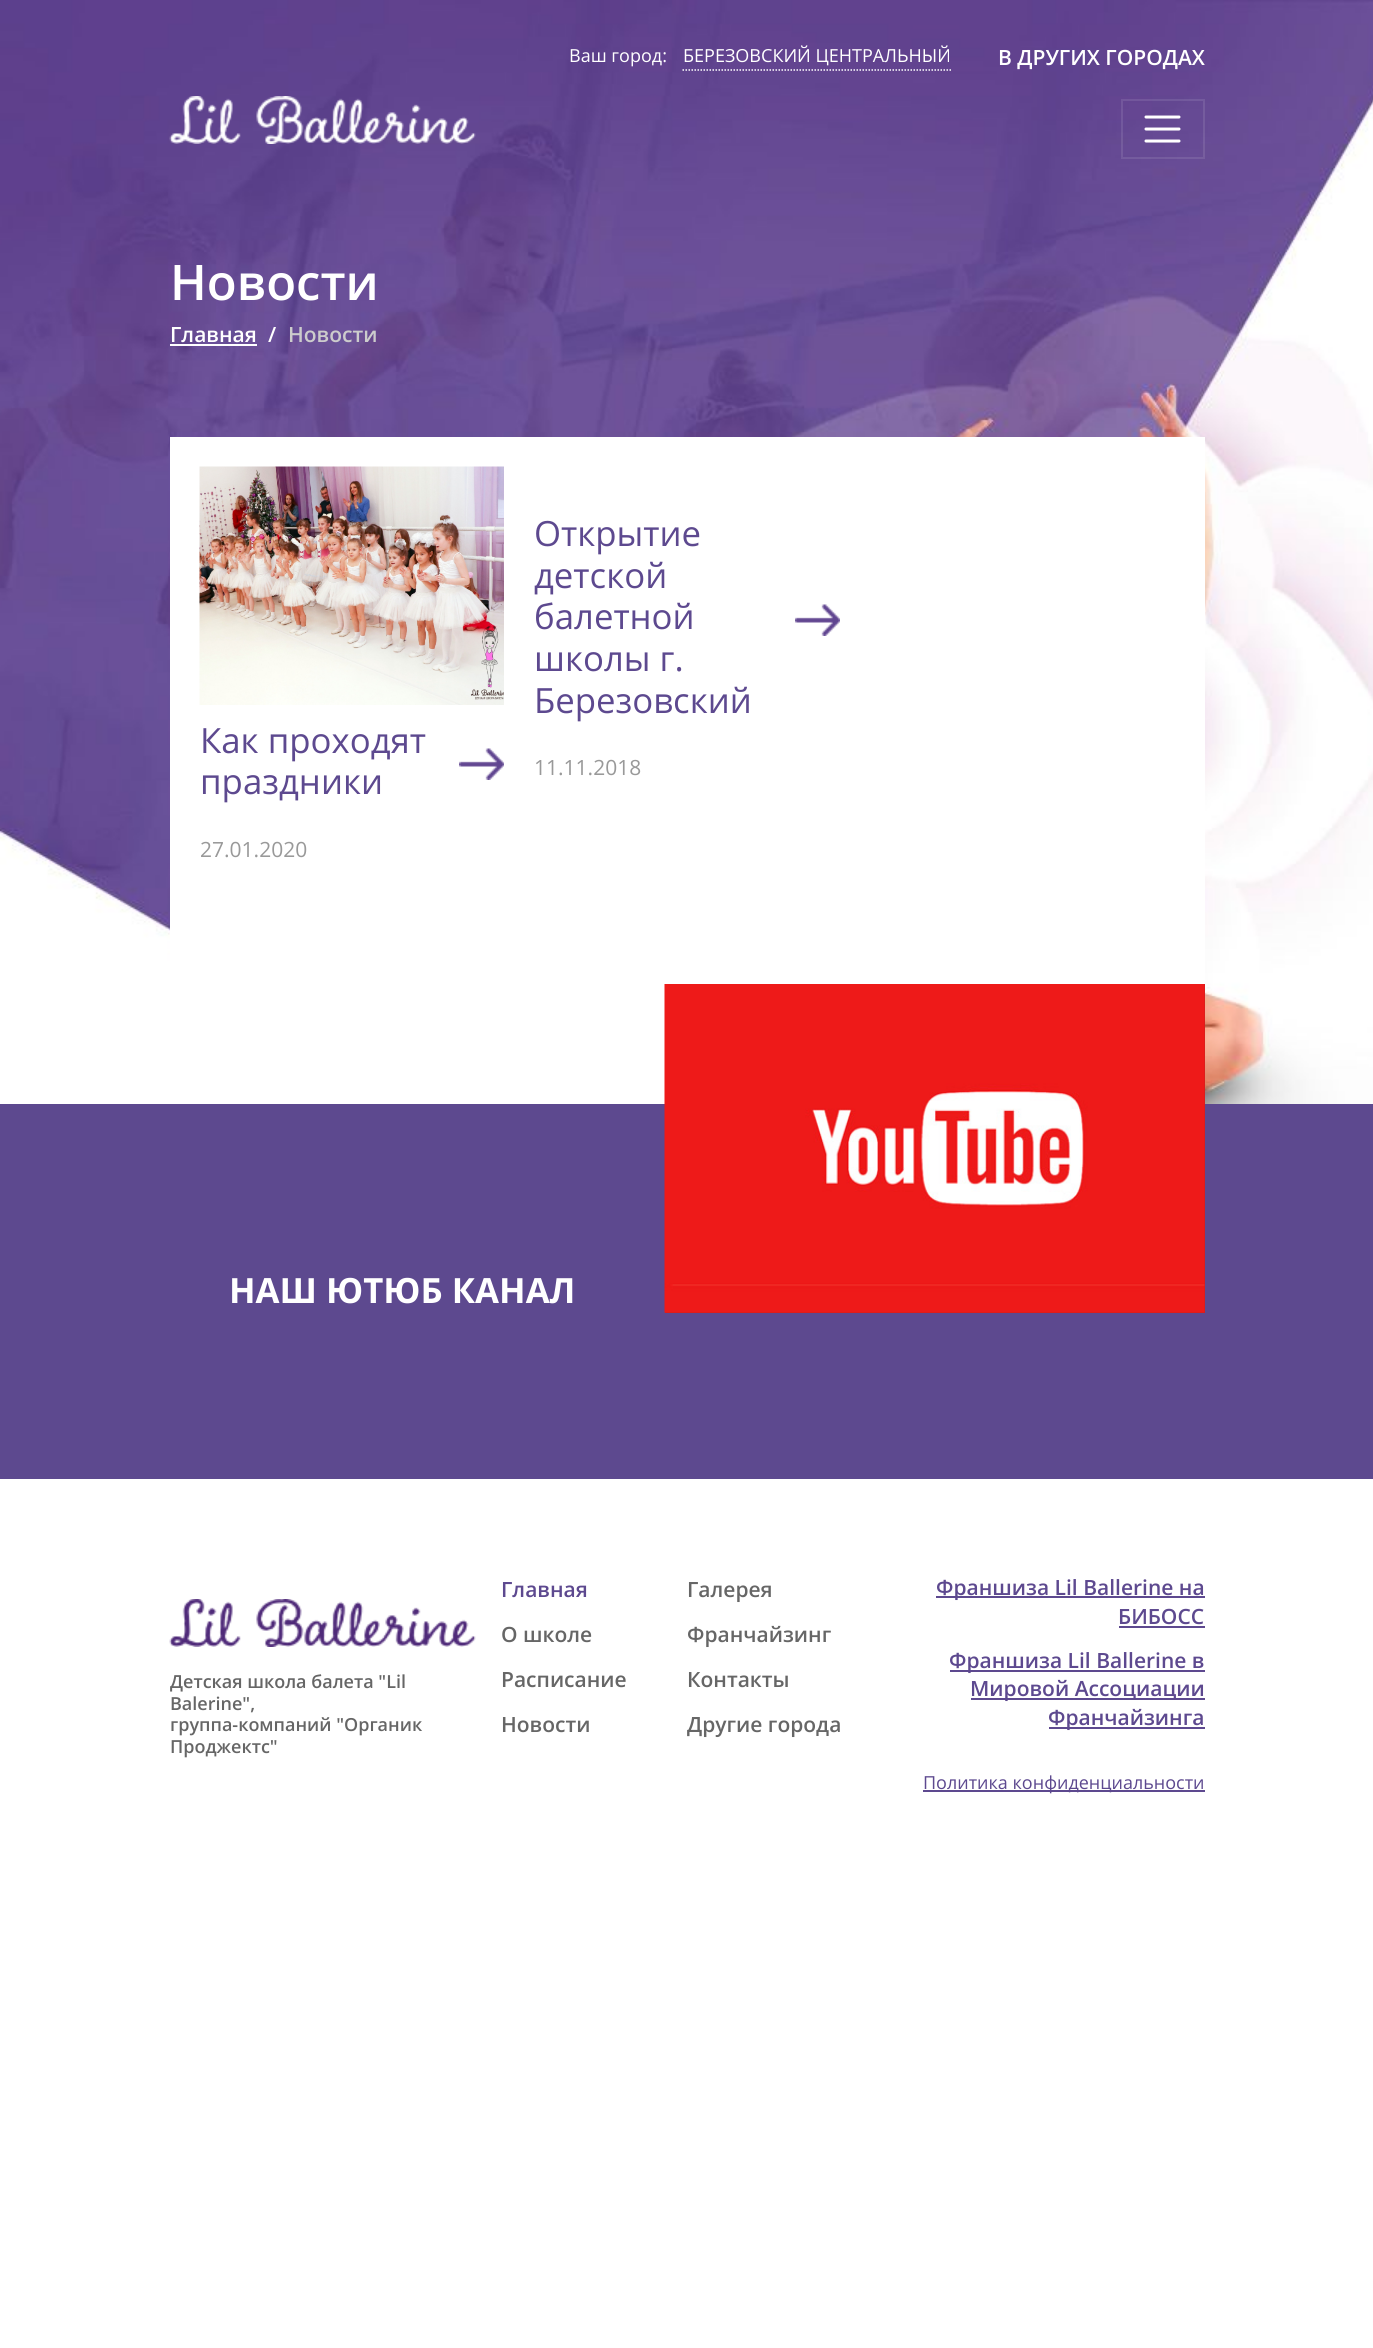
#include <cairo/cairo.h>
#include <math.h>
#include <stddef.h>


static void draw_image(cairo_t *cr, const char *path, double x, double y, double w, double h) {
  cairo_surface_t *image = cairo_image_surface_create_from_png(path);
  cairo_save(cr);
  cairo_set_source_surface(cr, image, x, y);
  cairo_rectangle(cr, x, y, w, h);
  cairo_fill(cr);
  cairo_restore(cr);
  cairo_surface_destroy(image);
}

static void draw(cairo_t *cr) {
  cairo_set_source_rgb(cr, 1, 1, 1);
  cairo_paint(cr);
  draw_image(cr, "images/1.png", 0, 0, 1373, 1104);
  cairo_new_path(cr);
  cairo_move_to(cr, 682.5, 70);
  cairo_line_to(cr, 952.5, 70);
  cairo_set_source_rgb(cr, 1, 1, 1);
  cairo_set_line_width(cr, 1.5);
  cairo_set_dash(cr, (double[]){1.5, 1.5}, 2, 0);
  cairo_stroke(cr);
  draw_image(cr, "images/2.png", 169, 96, 307, 48);
  cairo_rectangle(cr, 1122, 100, 82, 58);
  cairo_set_source_rgba(cr, 1, 1, 1, 0.1);
  cairo_set_line_width(cr, 2);
  cairo_set_dash(cr, NULL, 0, 0);
  cairo_stroke(cr);
  cairo_new_path(cr);
  cairo_move_to(cr, 1146, 117);
  cairo_line_to(cr, 1179, 117);
  cairo_move_to(cr, 1146, 129);
  cairo_line_to(cr, 1179, 129);
  cairo_move_to(cr, 1146, 141);
  cairo_line_to(cr, 1179, 141);
  cairo_set_source_rgb(cr, 1, 1, 1);
  cairo_set_line_width(cr, 3);
  cairo_set_line_cap(cr, CAIRO_LINE_CAP_ROUND);
  cairo_stroke(cr);
  cairo_rectangle(cr, 170, 344, 87, 2);
  cairo_fill(cr);
  cairo_rectangle(cr, 170, 437, 1035, 667);
  cairo_fill(cr);
  draw_image(cr, "images/3.png", 795, 604, 45, 32);
  draw_image(cr, "images/4.png", 199, 466, 305, 239);
  draw_image(cr, "images/5.png", 459, 748, 45, 32);
  cairo_set_source_rgb(cr, 93 / 255.0, 73 / 255.0, 143 / 255.0);
  cairo_rectangle(cr, 0, 1104, 1373, 375);
  cairo_fill(cr);
  cairo_set_source_rgb(cr, 204 / 255.0, 32 / 255.0, 31 / 255.0);
  cairo_rectangle(cr, 665, 984, 540, 329);
  cairo_fill(cr);
  draw_image(cr, "images/6.png", 664, 984, 541, 329);
  draw_image(cr, "images/7.png", 169, 1599, 307, 48);
  cairo_set_source_rgb(cr, 93 / 255.0, 73 / 255.0, 143 / 255.0);
  cairo_rectangle(cr, 936, 1596, 269, 2);
  cairo_fill(cr);
  cairo_rectangle(cr, 1119, 1626, 86, 2);
  cairo_fill(cr);
  cairo_rectangle(cr, 950, 1670, 255, 2);
  cairo_fill(cr);
  cairo_rectangle(cr, 971, 1698, 234, 2);
  cairo_fill(cr);
  cairo_rectangle(cr, 1049, 1727, 156, 2);
  cairo_fill(cr);
  cairo_rectangle(cr, 923, 1790, 282, 2);
  cairo_fill(cr);
  cairo_select_font_face(cr, "Open Sans", CAIRO_FONT_SLANT_NORMAL, CAIRO_FONT_WEIGHT_NORMAL);
  cairo_set_font_size(cr, 18);
  cairo_set_source_rgb(cr, 1, 1, 1);
  cairo_move_to(cr, 569, 62);
  cairo_show_text(cr, "Ваш город:");
  cairo_move_to(cr, 683, 62);
  cairo_show_text(cr, "БЕРЕЗОВСКИЙ ЦЕНТРАЛЬНЫЙ");
  cairo_select_font_face(cr, "Open Sans SemiBold", CAIRO_FONT_SLANT_NORMAL, CAIRO_FONT_WEIGHT_NORMAL);
  cairo_set_font_size(cr, 21);
  cairo_move_to(cr, 998, 65);
  cairo_show_text(cr, "В ДРУГИХ ГОРОДАХ");
  cairo_set_font_size(cr, 49);
  cairo_move_to(cr, 170, 300);
  cairo_show_text(cr, "Новости");
  cairo_set_font_size(cr, 21);
  cairo_move_to(cr, 170, 342);
  cairo_show_text(cr, "Главная");
  cairo_move_to(cr, 268, 342);
  cairo_show_text(cr, "/");
  cairo_set_source_rgb(cr, 204 / 255.0, 204 / 255.0, 204 / 255.0);
  cairo_move_to(cr, 288, 342);
  cairo_show_text(cr, "Новости");
  cairo_select_font_face(cr, "Open Sans", CAIRO_FONT_SLANT_NORMAL, CAIRO_FONT_WEIGHT_NORMAL);
  cairo_set_font_size(cr, 34.75);
  cairo_set_source_rgb(cr, 93 / 255.0, 73 / 255.0, 143 / 255.0);
  cairo_move_to(cr, 534, 546);
  cairo_show_text(cr, "Открытие");
  cairo_move_to(cr, 534, 588);
  cairo_show_text(cr, "детской");
  cairo_move_to(cr, 534, 629);
  cairo_show_text(cr, "балетной");
  cairo_move_to(cr, 534, 671);
  cairo_show_text(cr, "школы г.");
  cairo_move_to(cr, 534, 713);
  cairo_show_text(cr, "Березовский");
  cairo_set_font_size(cr, 21);
  cairo_set_source_rgb(cr, 153 / 255.0, 153 / 255.0, 153 / 255.0);
  cairo_move_to(cr, 534, 775);
  cairo_show_text(cr, "11.11.2018");
  cairo_set_font_size(cr, 34.75);
  cairo_set_source_rgb(cr, 93 / 255.0, 73 / 255.0, 143 / 255.0);
  cairo_move_to(cr, 200, 753);
  cairo_show_text(cr, "Как проходят");
  cairo_move_to(cr, 200, 794);
  cairo_show_text(cr, "праздники");
  cairo_set_font_size(cr, 21);
  cairo_set_source_rgb(cr, 153 / 255.0, 153 / 255.0, 153 / 255.0);
  cairo_move_to(cr, 200, 857);
  cairo_show_text(cr, "27.01.2020");
  cairo_select_font_face(cr, "Open Sans", CAIRO_FONT_SLANT_NORMAL, CAIRO_FONT_WEIGHT_BOLD);
  cairo_set_font_size(cr, 34.75);
  cairo_set_source_rgb(cr, 1, 1, 1);
  cairo_move_to(cr, 229, 1303);
  cairo_show_text(cr, "НАШ ЮТЮБ КАНАЛ");
  cairo_select_font_face(cr, "Open Sans SemiBold", CAIRO_FONT_SLANT_NORMAL, CAIRO_FONT_WEIGHT_NORMAL);
  cairo_set_font_size(cr, 18);
  cairo_set_source_rgb(cr, 102 / 255.0, 102 / 255.0, 102 / 255.0);
  cairo_move_to(cr, 170, 1688);
  cairo_show_text(cr, "Детская школа балета \"Lil");
  cairo_move_to(cr, 170, 1710);
  cairo_show_text(cr, "Balerine\",");
  cairo_move_to(cr, 170, 1731);
  cairo_show_text(cr, "группа-компаний \"Органик");
  cairo_move_to(cr, 170, 1753);
  cairo_show_text(cr, "Проджектс\"");
  cairo_set_font_size(cr, 21);
  cairo_set_source_rgb(cr, 93 / 255.0, 73 / 255.0, 143 / 255.0);
  cairo_move_to(cr, 501, 1597);
  cairo_show_text(cr, "Главная");
  cairo_set_source_rgb(cr, 102 / 255.0, 102 / 255.0, 102 / 255.0);
  cairo_move_to(cr, 501, 1642);
  cairo_show_text(cr, "О школе");
  cairo_move_to(cr, 501, 1687);
  cairo_show_text(cr, "Расписание");
  cairo_move_to(cr, 501, 1732);
  cairo_show_text(cr, "Новости");
  cairo_move_to(cr, 687, 1597);
  cairo_show_text(cr, "Галерея");
  cairo_move_to(cr, 687, 1642);
  cairo_show_text(cr, "Франчайзинг");
  cairo_move_to(cr, 687, 1687);
  cairo_show_text(cr, "Контакты");
  cairo_move_to(cr, 687, 1732);
  cairo_show_text(cr, "Другие города");
  cairo_set_source_rgb(cr, 93 / 255.0, 73 / 255.0, 143 / 255.0);
  cairo_move_to(cr, 936, 1595);
  cairo_show_text(cr, "Франшиза Lil Ballerine на");
  cairo_move_to(cr, 1118, 1624);
  cairo_show_text(cr, "БИБОСС");
  cairo_move_to(cr, 949, 1668);
  cairo_show_text(cr, "Франшиза Lil Ballerine в");
  cairo_move_to(cr, 970, 1696);
  cairo_show_text(cr, "Мировой Ассоциации");
  cairo_move_to(cr, 1048, 1725);
  cairo_show_text(cr, "Франчайзинга");
  cairo_select_font_face(cr, "Open Sans", CAIRO_FONT_SLANT_NORMAL, CAIRO_FONT_WEIGHT_NORMAL);
  cairo_set_font_size(cr, 18);
  cairo_move_to(cr, 923, 1789);
  cairo_show_text(cr, "Политика конфиденциальности");
}

int main(void) {
  cairo_surface_t *surface = cairo_image_surface_create(CAIRO_FORMAT_RGB24, 1373, 2348);
  cairo_t *cr = cairo_create(surface);
  cairo_font_options_t *options = cairo_font_options_create();
  cairo_font_options_set_hint_metrics(options, CAIRO_HINT_METRICS_OFF);
  cairo_font_options_set_hint_style(options, CAIRO_HINT_STYLE_NONE);
  cairo_set_font_options(cr, options);
  cairo_set_miter_limit(cr, 4);
  draw(cr);
  cairo_surface_write_to_png(surface, "out.png");
  cairo_font_options_destroy(options);
  cairo_destroy(cr);
  cairo_surface_destroy(surface);
  return 0;
}
